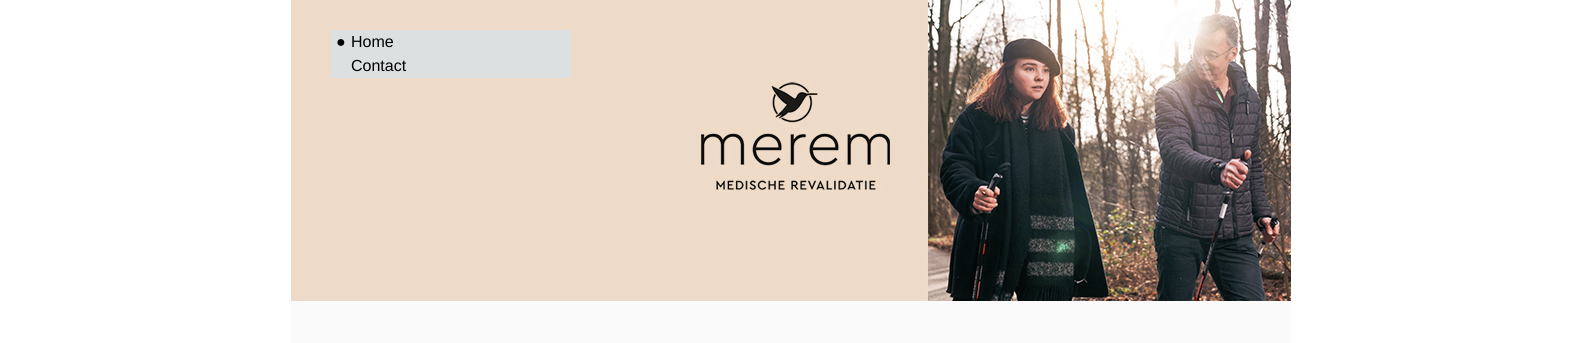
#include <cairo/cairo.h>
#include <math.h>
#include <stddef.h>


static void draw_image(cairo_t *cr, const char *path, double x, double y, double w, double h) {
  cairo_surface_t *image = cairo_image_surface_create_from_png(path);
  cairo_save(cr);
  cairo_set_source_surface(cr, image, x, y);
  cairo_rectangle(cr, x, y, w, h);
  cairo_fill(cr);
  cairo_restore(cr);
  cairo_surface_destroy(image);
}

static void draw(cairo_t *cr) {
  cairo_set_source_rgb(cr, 1, 1, 1);
  cairo_paint(cr);
  draw_image(cr, "images/1.png", 291, 0, 1000, 301);
  cairo_set_source_rgb(cr, 220 / 255.0, 224 / 255.0, 225 / 255.0);
  cairo_rectangle(cr, 331, 30, 240, 48);
  cairo_fill(cr);
  cairo_set_source_rgb(cr, 250 / 255.0, 250 / 255.0, 250 / 255.0);
  cairo_rectangle(cr, 291, 301, 1000, 42);
  cairo_fill(cr);
  cairo_select_font_face(cr, "Liberation Sans", CAIRO_FONT_SLANT_NORMAL, CAIRO_FONT_WEIGHT_NORMAL);
  cairo_set_font_size(cr, 16);
  cairo_set_source_rgb(cr, 0, 0, 0);
  cairo_move_to(cr, 336, 47);
  cairo_show_text(cr, "●");
  cairo_move_to(cr, 351, 47);
  cairo_show_text(cr, "Home");
  cairo_move_to(cr, 351, 71);
  cairo_show_text(cr, "Contact");
}

int main(void) {
  cairo_surface_t *surface = cairo_image_surface_create(CAIRO_FORMAT_RGB24, 1581, 343);
  cairo_t *cr = cairo_create(surface);
  cairo_font_options_t *options = cairo_font_options_create();
  cairo_font_options_set_hint_metrics(options, CAIRO_HINT_METRICS_OFF);
  cairo_font_options_set_hint_style(options, CAIRO_HINT_STYLE_NONE);
  cairo_set_font_options(cr, options);
  cairo_set_miter_limit(cr, 4);
  draw(cr);
  cairo_surface_write_to_png(surface, "out.png");
  cairo_font_options_destroy(options);
  cairo_destroy(cr);
  cairo_surface_destroy(surface);
  return 0;
}
